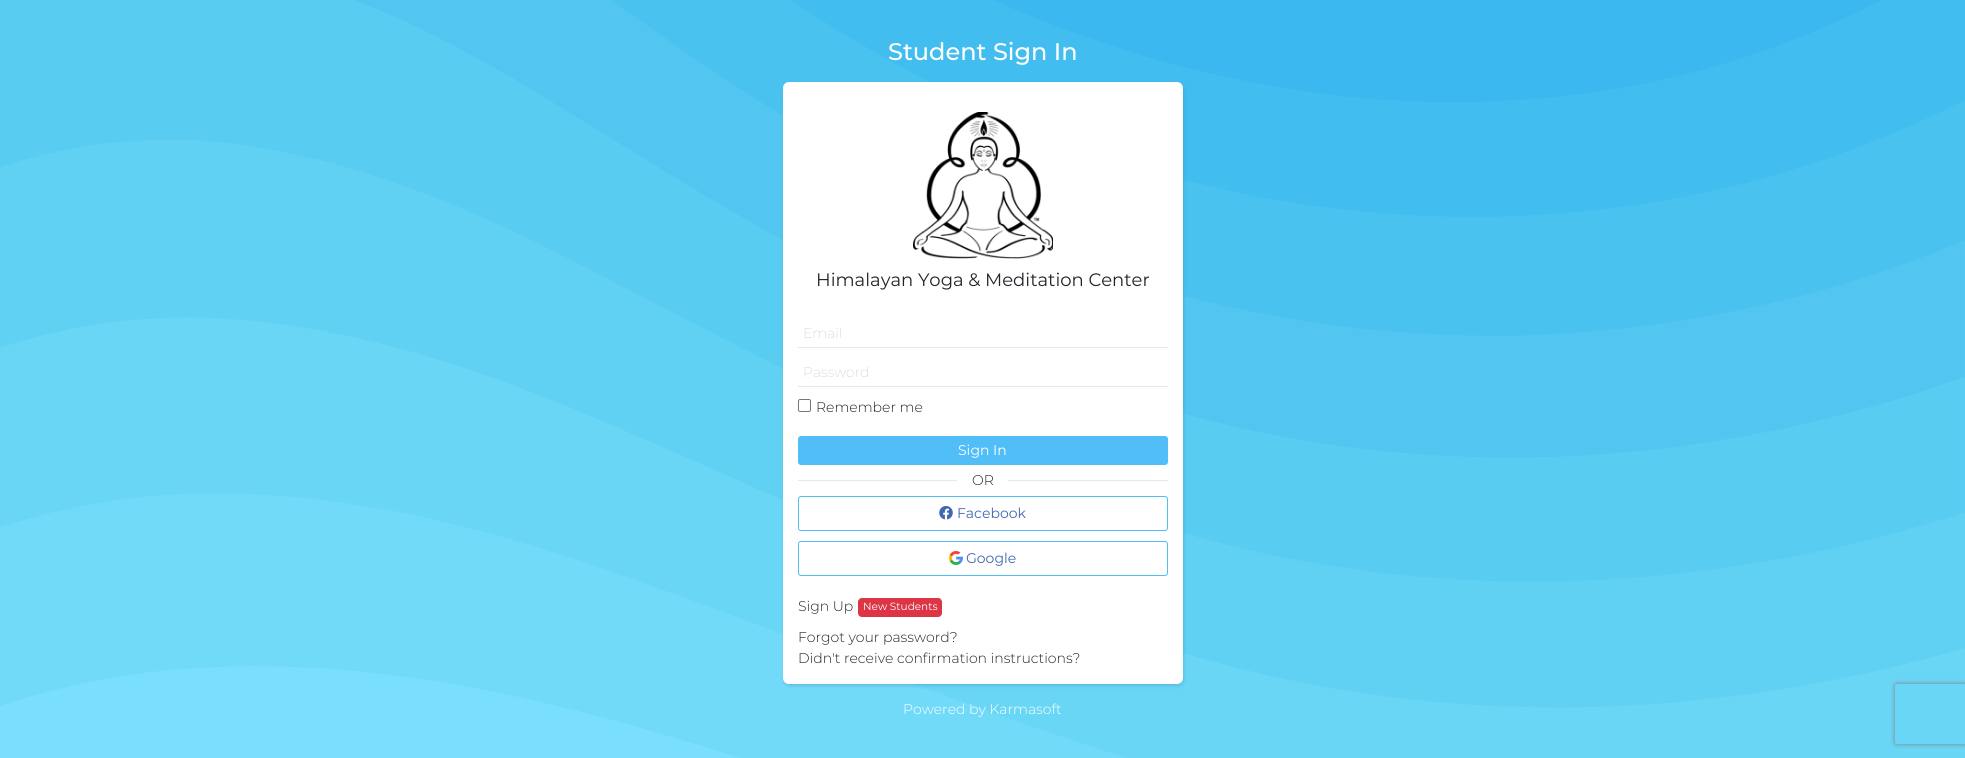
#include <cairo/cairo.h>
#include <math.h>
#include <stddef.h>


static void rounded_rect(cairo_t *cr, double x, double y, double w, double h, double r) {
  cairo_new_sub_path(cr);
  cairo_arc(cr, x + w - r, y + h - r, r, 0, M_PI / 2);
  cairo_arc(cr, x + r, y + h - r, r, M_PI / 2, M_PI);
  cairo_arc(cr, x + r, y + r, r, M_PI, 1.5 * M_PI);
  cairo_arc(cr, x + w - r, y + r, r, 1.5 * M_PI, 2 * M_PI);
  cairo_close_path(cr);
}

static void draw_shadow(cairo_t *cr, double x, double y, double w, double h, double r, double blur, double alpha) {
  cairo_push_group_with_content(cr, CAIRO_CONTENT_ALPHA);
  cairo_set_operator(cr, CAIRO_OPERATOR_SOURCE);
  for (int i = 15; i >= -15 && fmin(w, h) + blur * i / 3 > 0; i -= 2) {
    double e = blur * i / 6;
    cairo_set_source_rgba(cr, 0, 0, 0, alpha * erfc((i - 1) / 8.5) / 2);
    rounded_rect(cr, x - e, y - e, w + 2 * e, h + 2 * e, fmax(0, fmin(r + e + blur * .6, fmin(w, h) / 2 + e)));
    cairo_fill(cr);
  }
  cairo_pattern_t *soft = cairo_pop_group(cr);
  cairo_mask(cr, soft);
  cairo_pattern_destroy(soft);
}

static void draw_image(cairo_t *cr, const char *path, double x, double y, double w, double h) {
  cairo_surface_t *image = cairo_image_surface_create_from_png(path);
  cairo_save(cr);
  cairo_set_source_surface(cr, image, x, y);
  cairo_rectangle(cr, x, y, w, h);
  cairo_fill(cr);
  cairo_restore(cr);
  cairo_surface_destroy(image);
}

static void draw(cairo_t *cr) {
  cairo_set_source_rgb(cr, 130 / 255.0, 228 / 255.0, 1);
  cairo_paint(cr);
  draw_image(cr, "images/1.png", 0, 0, 1965, 758);
  cairo_set_source_rgb(cr, 36 / 255.0, 104 / 255.0, 136 / 255.0);
  draw_shadow(cr, 784, 84, 400, 602, 6, 2, 0.23);
  cairo_set_source_rgb(cr, 1, 1, 1);
  rounded_rect(cr, 783, 82, 400, 602, 6);
  cairo_fill(cr);
  draw_image(cr, "images/2.png", 913, 112, 140, 147);
  cairo_set_source_rgb(cr, 232 / 255.0, 232 / 255.0, 232 / 255.0);
  cairo_rectangle(cr, 798, 347, 370, 1);
  cairo_fill(cr);
  cairo_rectangle(cr, 798, 386, 370, 1);
  cairo_fill(cr);
  rounded_rect(cr, 798.5, 399.5, 12, 12, 1.5);
  cairo_set_source_rgb(cr, 118 / 255.0, 118 / 255.0, 118 / 255.0);
  cairo_set_line_width(cr, 1);
  cairo_stroke(cr);
  cairo_set_source_rgb(cr, 81 / 255.0, 190 / 255.0, 247 / 255.0);
  rounded_rect(cr, 798, 436, 370, 29, 3);
  cairo_fill(cr);
  cairo_set_source_rgb(cr, 232 / 255.0, 232 / 255.0, 232 / 255.0);
  cairo_rectangle(cr, 798, 480, 370, 1);
  cairo_fill(cr);
  cairo_set_source_rgb(cr, 1, 1, 1);
  cairo_rectangle(cr, 957, 480, 51, 1);
  cairo_fill(cr);
  rounded_rect(cr, 798.5, 496.5, 369, 34, 2.5);
  cairo_set_source_rgb(cr, 81 / 255.0, 190 / 255.0, 247 / 255.0);
  cairo_stroke(cr);
  draw_image(cr, "images/3.png", 939, 506, 14, 14);
  rounded_rect(cr, 798.5, 541.5, 369, 34, 2.5);
  cairo_stroke(cr);
  draw_image(cr, "images/4.png", 949, 551, 14, 14);
  cairo_set_source_rgb(cr, 220 / 255.0, 53 / 255.0, 69 / 255.0);
  rounded_rect(cr, 858, 598, 84, 19, 4);
  cairo_fill(cr);
  cairo_save(cr);
  cairo_set_fill_rule(cr, CAIRO_FILL_RULE_EVEN_ODD);
  cairo_new_path(cr);
  cairo_move_to(cr, 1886, 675);
  cairo_line_to(cr, 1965, 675);
  cairo_line_to(cr, 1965, 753);
  cairo_line_to(cr, 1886, 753);
  cairo_close_path(cr);
  cairo_move_to(cr, 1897, 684);
  cairo_line_to(cr, 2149, 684);
  cairo_curve_to(cr, 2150, 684, 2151, 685, 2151, 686);
  cairo_line_to(cr, 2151, 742);
  cairo_curve_to(cr, 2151, 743, 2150, 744, 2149, 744);
  cairo_line_to(cr, 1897, 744);
  cairo_curve_to(cr, 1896, 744, 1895, 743, 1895, 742);
  cairo_line_to(cr, 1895, 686);
  cairo_curve_to(cr, 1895, 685, 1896, 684, 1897, 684);
  cairo_close_path(cr);
  cairo_clip(cr);
  cairo_set_source_rgb(cr, 128 / 255.0, 128 / 255.0, 128 / 255.0);
  draw_shadow(cr, 1895, 684, 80, 60, 2, 2.5, 1);
  cairo_restore(cr);
  cairo_select_font_face(cr, "Montserrat Medium", CAIRO_FONT_SLANT_NORMAL, CAIRO_FONT_WEIGHT_NORMAL);
  cairo_set_font_size(cr, 24);
  cairo_set_source_rgb(cr, 1, 1, 1);
  cairo_move_to(cr, 888, 60);
  cairo_show_text(cr, "Student Sign In");
  cairo_select_font_face(cr, "Montserrat", CAIRO_FONT_SLANT_NORMAL, CAIRO_FONT_WEIGHT_NORMAL);
  cairo_set_font_size(cr, 18);
  cairo_set_source_rgb(cr, 33 / 255.0, 37 / 255.0, 41 / 255.0);
  cairo_move_to(cr, 816, 286);
  cairo_show_text(cr, "Himalayan Yoga & Meditation Center");
  cairo_select_font_face(cr, "Montserrat ExtraLight", CAIRO_FONT_SLANT_NORMAL, CAIRO_FONT_WEIGHT_NORMAL);
  cairo_set_font_size(cr, 14);
  cairo_set_source_rgb(cr, 206 / 255.0, 206 / 255.0, 206 / 255.0);
  cairo_move_to(cr, 803, 338);
  cairo_show_text(cr, "Email");
  cairo_move_to(cr, 803, 377);
  cairo_show_text(cr, "Password");
  cairo_select_font_face(cr, "Montserrat Light", CAIRO_FONT_SLANT_NORMAL, CAIRO_FONT_WEIGHT_NORMAL);
  cairo_set_source_rgb(cr, 33 / 255.0, 37 / 255.0, 41 / 255.0);
  cairo_move_to(cr, 816, 412);
  cairo_show_text(cr, "Remember me");
  cairo_select_font_face(cr, "Montserrat", CAIRO_FONT_SLANT_NORMAL, CAIRO_FONT_WEIGHT_NORMAL);
  cairo_set_source_rgb(cr, 1, 1, 1);
  cairo_move_to(cr, 958, 455);
  cairo_show_text(cr, "Sign In");
  cairo_select_font_face(cr, "Montserrat Light", CAIRO_FONT_SLANT_NORMAL, CAIRO_FONT_WEIGHT_NORMAL);
  cairo_set_source_rgb(cr, 33 / 255.0, 37 / 255.0, 41 / 255.0);
  cairo_move_to(cr, 972, 485);
  cairo_show_text(cr, "OR");
  cairo_select_font_face(cr, "Montserrat", CAIRO_FONT_SLANT_NORMAL, CAIRO_FONT_WEIGHT_NORMAL);
  cairo_set_source_rgb(cr, 66 / 255.0, 103 / 255.0, 178 / 255.0);
  cairo_move_to(cr, 957, 518);
  cairo_show_text(cr, "Facebook");
  cairo_move_to(cr, 966, 563);
  cairo_show_text(cr, "Google");
  cairo_select_font_face(cr, "Montserrat Light", CAIRO_FONT_SLANT_NORMAL, CAIRO_FONT_WEIGHT_NORMAL);
  cairo_set_source_rgb(cr, 33 / 255.0, 37 / 255.0, 41 / 255.0);
  cairo_move_to(cr, 798, 611);
  cairo_show_text(cr, "Sign Up");
  cairo_select_font_face(cr, "Montserrat", CAIRO_FONT_SLANT_NORMAL, CAIRO_FONT_WEIGHT_NORMAL);
  cairo_set_font_size(cr, 10.5);
  cairo_set_source_rgb(cr, 1, 1, 1);
  cairo_move_to(cr, 863, 610);
  cairo_show_text(cr, "New Students");
  cairo_select_font_face(cr, "Montserrat Light", CAIRO_FONT_SLANT_NORMAL, CAIRO_FONT_WEIGHT_NORMAL);
  cairo_set_font_size(cr, 14);
  cairo_set_source_rgb(cr, 33 / 255.0, 37 / 255.0, 41 / 255.0);
  cairo_move_to(cr, 798, 642);
  cairo_show_text(cr, "Forgot your password?");
  cairo_move_to(cr, 798, 663);
  cairo_show_text(cr, "Didn't receive confirmation instructions?");
  cairo_set_source_rgb(cr, 1, 1, 1);
  cairo_move_to(cr, 903, 714);
  cairo_show_text(cr, "Powered by Karmasoft");
}

int main(void) {
  cairo_surface_t *surface = cairo_image_surface_create(CAIRO_FORMAT_RGB24, 1965, 758);
  cairo_t *cr = cairo_create(surface);
  cairo_font_options_t *options = cairo_font_options_create();
  cairo_font_options_set_hint_metrics(options, CAIRO_HINT_METRICS_OFF);
  cairo_font_options_set_hint_style(options, CAIRO_HINT_STYLE_NONE);
  cairo_set_font_options(cr, options);
  cairo_set_miter_limit(cr, 4);
  draw(cr);
  cairo_surface_write_to_png(surface, "out.png");
  cairo_font_options_destroy(options);
  cairo_destroy(cr);
  cairo_surface_destroy(surface);
  return 0;
}
